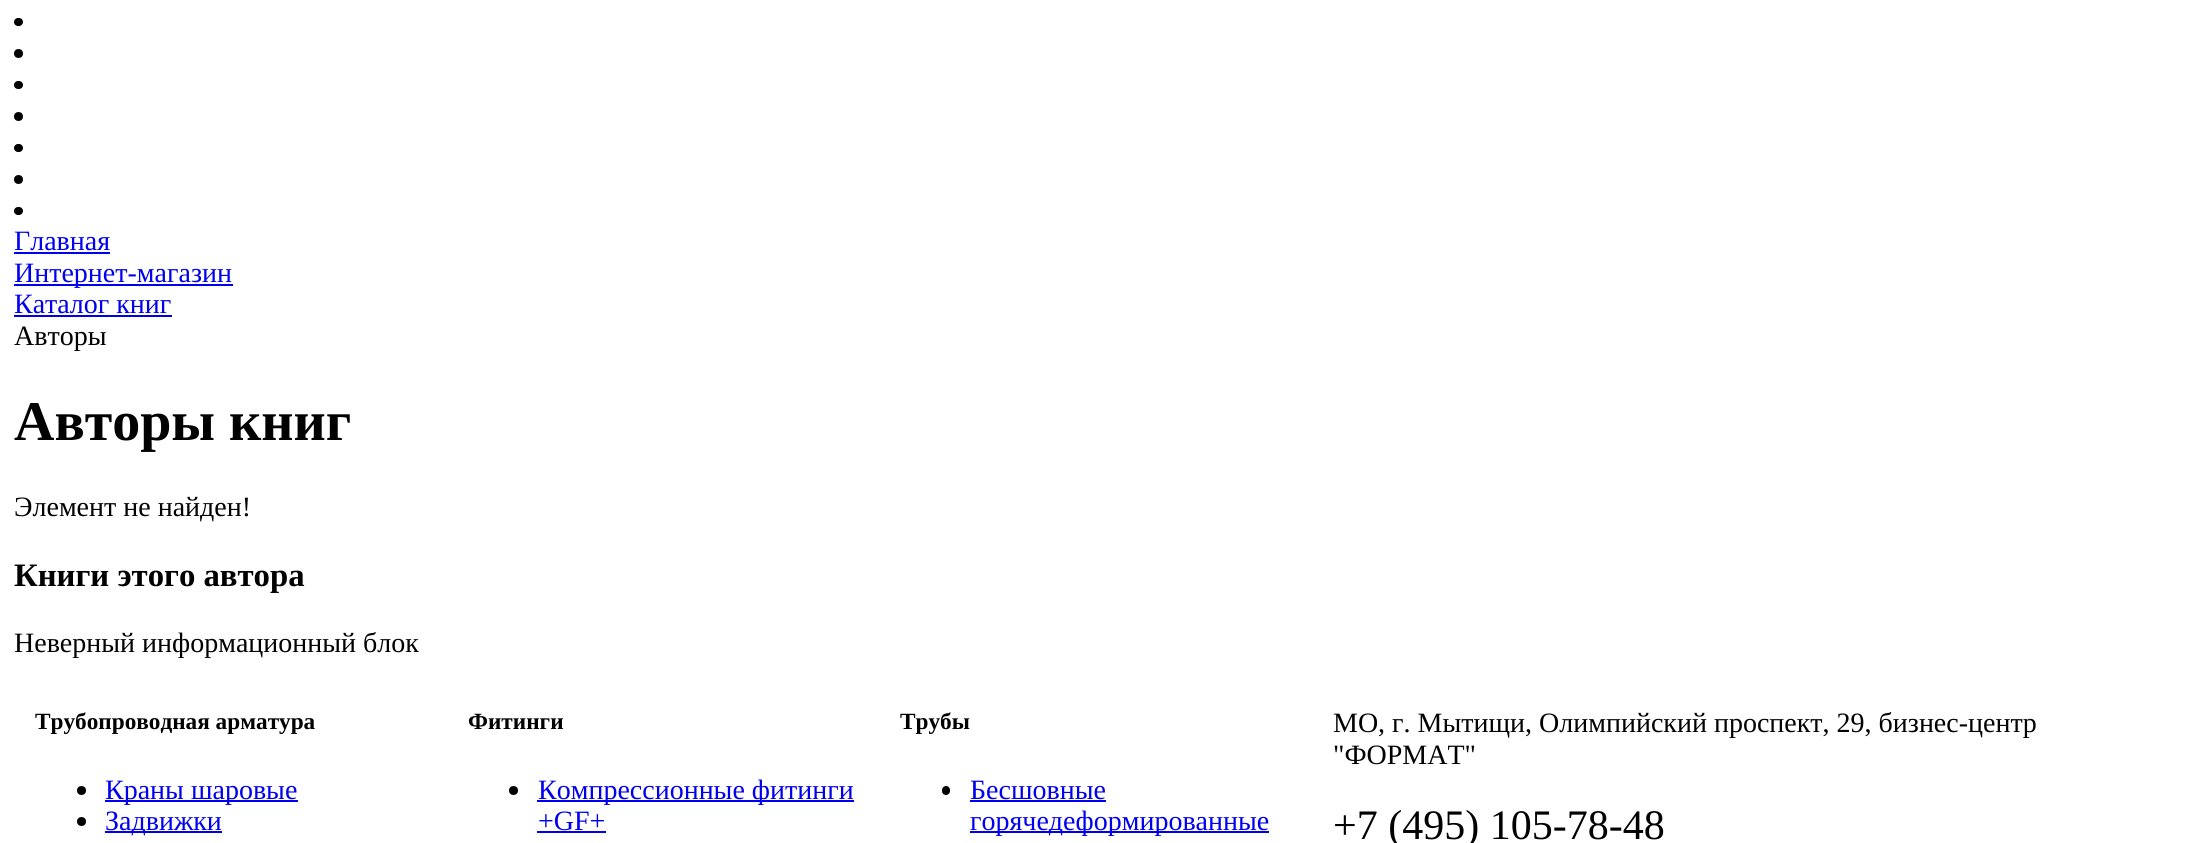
#include <cairo/cairo.h>
#include <math.h>
#include <stddef.h>


static void rounded_rect(cairo_t *cr, double x, double y, double w, double h, double r) {
  cairo_new_sub_path(cr);
  cairo_arc(cr, x + w - r, y + h - r, r, 0, M_PI / 2);
  cairo_arc(cr, x + r, y + h - r, r, M_PI / 2, M_PI);
  cairo_arc(cr, x + r, y + r, r, M_PI, 1.5 * M_PI);
  cairo_arc(cr, x + w - r, y + r, r, 1.5 * M_PI, 2 * M_PI);
  cairo_close_path(cr);
}

static void draw(cairo_t *cr) {
  cairo_set_source_rgb(cr, 1, 1, 1);
  cairo_paint(cr);
  cairo_set_source_rgb(cr, 0, 0, 0);
  rounded_rect(cr, 14, 18, 9, 8, 4);
  cairo_fill(cr);
  cairo_arc(cr, 18.5, 53.5, 4.5, 0, 2 * M_PI);
  cairo_fill(cr);
  rounded_rect(cr, 14, 81, 9, 8, 4);
  cairo_fill(cr);
  cairo_arc(cr, 18.5, 116.5, 4.5, 0, 2 * M_PI);
  cairo_fill(cr);
  rounded_rect(cr, 14, 144, 9, 8, 4);
  cairo_fill(cr);
  cairo_arc(cr, 18.5, 179.5, 4.5, 0, 2 * M_PI);
  cairo_fill(cr);
  rounded_rect(cr, 14, 207, 9, 8, 4);
  cairo_fill(cr);
  cairo_set_source_rgb(cr, 0, 0, 238 / 255.0);
  cairo_rectangle(cr, 14, 252, 96, 2);
  cairo_fill(cr);
  cairo_rectangle(cr, 14, 284, 219, 2);
  cairo_fill(cr);
  cairo_rectangle(cr, 14, 315, 158, 2);
  cairo_fill(cr);
  cairo_set_source_rgb(cr, 0, 0, 0);
  cairo_arc(cr, 81.5, 790.5, 4.5, 0, 2 * M_PI);
  cairo_fill(cr);
  cairo_set_source_rgb(cr, 0, 0, 238 / 255.0);
  cairo_rectangle(cr, 105, 800, 193, 2);
  cairo_fill(cr);
  cairo_set_source_rgb(cr, 0, 0, 0);
  cairo_arc(cr, 81.5, 821.5, 4.5, 0, 2 * M_PI);
  cairo_fill(cr);
  cairo_set_source_rgb(cr, 0, 0, 238 / 255.0);
  cairo_rectangle(cr, 105, 831, 117, 2);
  cairo_fill(cr);
  cairo_set_source_rgb(cr, 0, 0, 0);
  cairo_arc(cr, 513.5, 790.5, 4.5, 0, 2 * M_PI);
  cairo_fill(cr);
  cairo_set_source_rgb(cr, 0, 0, 238 / 255.0);
  cairo_rectangle(cr, 537, 800, 317, 2);
  cairo_fill(cr);
  cairo_rectangle(cr, 537, 831, 69, 2);
  cairo_fill(cr);
  cairo_set_source_rgb(cr, 0, 0, 0);
  rounded_rect(cr, 942, 786, 8, 9, 4);
  cairo_fill(cr);
  cairo_set_source_rgb(cr, 0, 0, 238 / 255.0);
  cairo_rectangle(cr, 970, 800, 136, 2);
  cairo_fill(cr);
  cairo_rectangle(cr, 970, 831, 299, 2);
  cairo_fill(cr);
  cairo_select_font_face(cr, "Liberation Serif", CAIRO_FONT_SLANT_NORMAL, CAIRO_FONT_WEIGHT_NORMAL);
  cairo_set_font_size(cr, 28);
  cairo_move_to(cr, 14, 250);
  cairo_show_text(cr, "Главная");
  cairo_move_to(cr, 14, 282);
  cairo_show_text(cr, "Интернет-магазин");
  cairo_move_to(cr, 14, 313);
  cairo_show_text(cr, "Каталог книг");
  cairo_set_source_rgb(cr, 0, 0, 0);
  cairo_move_to(cr, 14, 345);
  cairo_show_text(cr, "Авторы");
  cairo_select_font_face(cr, "Liberation Serif", CAIRO_FONT_SLANT_NORMAL, CAIRO_FONT_WEIGHT_BOLD);
  cairo_set_font_size(cr, 56);
  cairo_move_to(cr, 14, 440);
  cairo_show_text(cr, "Авторы книг");
  cairo_select_font_face(cr, "Liberation Serif", CAIRO_FONT_SLANT_NORMAL, CAIRO_FONT_WEIGHT_NORMAL);
  cairo_set_font_size(cr, 28);
  cairo_move_to(cr, 14, 516);
  cairo_show_text(cr, "Элемент не найден!");
  cairo_select_font_face(cr, "Liberation Serif", CAIRO_FONT_SLANT_NORMAL, CAIRO_FONT_WEIGHT_BOLD);
  cairo_set_font_size(cr, 32.75);
  cairo_move_to(cr, 14, 586);
  cairo_show_text(cr, "Книги этого автора");
  cairo_select_font_face(cr, "Liberation Serif", CAIRO_FONT_SLANT_NORMAL, CAIRO_FONT_WEIGHT_NORMAL);
  cairo_set_font_size(cr, 28);
  cairo_move_to(cr, 14, 652);
  cairo_show_text(cr, "Неверный информационный блок");
  cairo_select_font_face(cr, "Liberation Serif", CAIRO_FONT_SLANT_NORMAL, CAIRO_FONT_WEIGHT_BOLD);
  cairo_set_font_size(cr, 23.25);
  cairo_move_to(cr, 35, 729);
  cairo_show_text(cr, "Трубопроводная арматура");
  cairo_select_font_face(cr, "Liberation Serif", CAIRO_FONT_SLANT_NORMAL, CAIRO_FONT_WEIGHT_NORMAL);
  cairo_set_font_size(cr, 28);
  cairo_set_source_rgb(cr, 0, 0, 238 / 255.0);
  cairo_move_to(cr, 105, 799);
  cairo_show_text(cr, "Краны шаровые");
  cairo_move_to(cr, 105, 830);
  cairo_show_text(cr, "Задвижки");
  cairo_select_font_face(cr, "Liberation Serif", CAIRO_FONT_SLANT_NORMAL, CAIRO_FONT_WEIGHT_BOLD);
  cairo_set_font_size(cr, 23.25);
  cairo_set_source_rgb(cr, 0, 0, 0);
  cairo_move_to(cr, 468, 729);
  cairo_show_text(cr, "Фитинги");
  cairo_select_font_face(cr, "Liberation Serif", CAIRO_FONT_SLANT_NORMAL, CAIRO_FONT_WEIGHT_NORMAL);
  cairo_set_font_size(cr, 28);
  cairo_set_source_rgb(cr, 0, 0, 238 / 255.0);
  cairo_move_to(cr, 538, 799);
  cairo_show_text(cr, "Компрессионные фитинги");
  cairo_move_to(cr, 538, 830);
  cairo_show_text(cr, "+GF+");
  cairo_select_font_face(cr, "Liberation Serif", CAIRO_FONT_SLANT_NORMAL, CAIRO_FONT_WEIGHT_BOLD);
  cairo_set_font_size(cr, 23.25);
  cairo_set_source_rgb(cr, 0, 0, 0);
  cairo_move_to(cr, 900, 729);
  cairo_show_text(cr, "Трубы");
  cairo_select_font_face(cr, "Liberation Serif", CAIRO_FONT_SLANT_NORMAL, CAIRO_FONT_WEIGHT_NORMAL);
  cairo_set_font_size(cr, 28);
  cairo_set_source_rgb(cr, 0, 0, 238 / 255.0);
  cairo_move_to(cr, 970, 799);
  cairo_show_text(cr, "Бесшовные");
  cairo_move_to(cr, 970, 830);
  cairo_show_text(cr, "горячедеформированные");
  cairo_set_source_rgb(cr, 0, 0, 0);
  cairo_move_to(cr, 1333, 732);
  cairo_show_text(cr, "МО, г. Мытищи, Олимпийский проспект, 29, бизнес-центр");
  cairo_move_to(cr, 1333, 764);
  cairo_show_text(cr, "\"ФОРМАТ\"");
  cairo_set_font_size(cr, 42);
  cairo_move_to(cr, 1333, 839);
  cairo_show_text(cr, "+7 (495) 105-78-48");
}

int main(void) {
  cairo_surface_t *surface = cairo_image_surface_create(CAIRO_FORMAT_RGB24, 2190, 843);
  cairo_t *cr = cairo_create(surface);
  cairo_font_options_t *options = cairo_font_options_create();
  cairo_font_options_set_hint_metrics(options, CAIRO_HINT_METRICS_OFF);
  cairo_font_options_set_hint_style(options, CAIRO_HINT_STYLE_NONE);
  cairo_set_font_options(cr, options);
  cairo_set_miter_limit(cr, 4);
  draw(cr);
  cairo_surface_write_to_png(surface, "out.png");
  cairo_font_options_destroy(options);
  cairo_destroy(cr);
  cairo_surface_destroy(surface);
  return 0;
}
